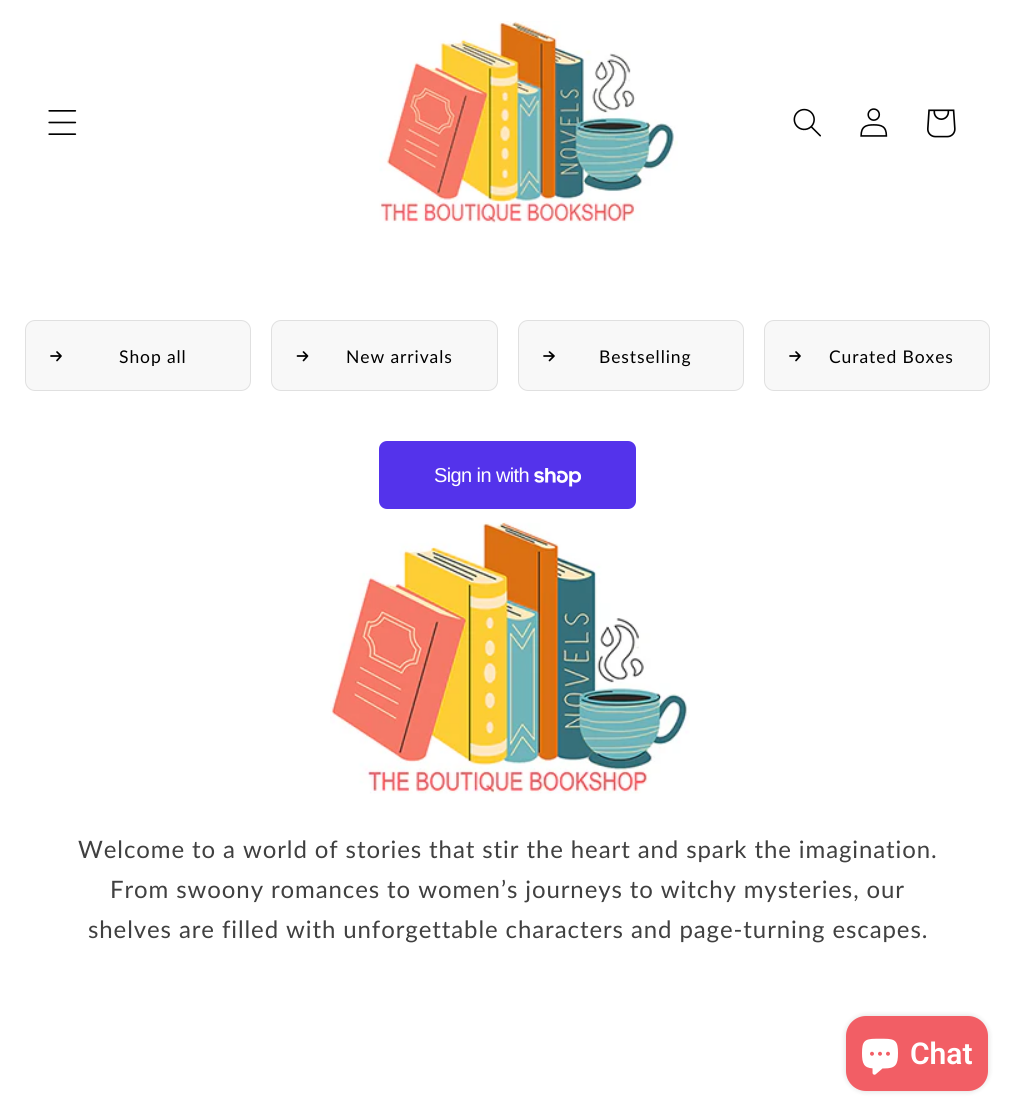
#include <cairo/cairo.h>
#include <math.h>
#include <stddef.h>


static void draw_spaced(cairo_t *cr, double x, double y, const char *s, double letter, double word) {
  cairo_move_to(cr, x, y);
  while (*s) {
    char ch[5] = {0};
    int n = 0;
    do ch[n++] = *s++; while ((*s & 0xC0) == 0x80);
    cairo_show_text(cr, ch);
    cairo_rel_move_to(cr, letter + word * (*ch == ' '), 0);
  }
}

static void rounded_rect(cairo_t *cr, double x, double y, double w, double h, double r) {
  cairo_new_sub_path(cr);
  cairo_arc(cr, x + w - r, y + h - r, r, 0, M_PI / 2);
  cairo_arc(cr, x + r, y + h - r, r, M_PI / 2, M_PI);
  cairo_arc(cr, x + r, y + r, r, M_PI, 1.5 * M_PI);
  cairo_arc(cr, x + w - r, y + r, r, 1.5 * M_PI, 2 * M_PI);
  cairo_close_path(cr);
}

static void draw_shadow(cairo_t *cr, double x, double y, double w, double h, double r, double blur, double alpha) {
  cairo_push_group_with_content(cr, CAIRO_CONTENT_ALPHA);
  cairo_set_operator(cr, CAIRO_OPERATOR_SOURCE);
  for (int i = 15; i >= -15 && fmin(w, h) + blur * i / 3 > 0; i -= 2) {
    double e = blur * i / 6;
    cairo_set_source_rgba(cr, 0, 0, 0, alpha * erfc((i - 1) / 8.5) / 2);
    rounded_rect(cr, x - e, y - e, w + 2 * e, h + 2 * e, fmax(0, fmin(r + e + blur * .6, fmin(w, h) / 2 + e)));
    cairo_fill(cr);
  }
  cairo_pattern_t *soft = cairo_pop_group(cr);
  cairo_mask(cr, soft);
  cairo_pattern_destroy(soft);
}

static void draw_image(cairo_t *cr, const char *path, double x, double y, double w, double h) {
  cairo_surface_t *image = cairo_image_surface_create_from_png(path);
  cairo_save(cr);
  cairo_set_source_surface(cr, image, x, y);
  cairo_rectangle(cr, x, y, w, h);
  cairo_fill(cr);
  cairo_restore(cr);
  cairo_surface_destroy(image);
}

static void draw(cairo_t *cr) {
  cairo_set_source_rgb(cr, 1, 1, 1);
  cairo_paint(cr);
  draw_image(cr, "images/1.png", 48, 110, 29, 25);
  draw_image(cr, "images/2.png", 379, 21, 299, 202);
  draw_image(cr, "images/3.png", 793, 108, 28, 29);
  draw_image(cr, "images/4.png", 860, 108, 28, 29);
  draw_image(cr, "images/5.png", 927, 109, 29, 29);
  cairo_set_source_rgb(cr, 248 / 255.0, 248 / 255.0, 248 / 255.0);
  rounded_rect(cr, 25.5, 320.5, 225, 70, 9.5);
  cairo_fill_preserve(cr);
  cairo_set_source_rgb(cr, 224 / 255.0, 224 / 255.0, 224 / 255.0);
  cairo_set_line_width(cr, 1);
  cairo_stroke(cr);
  cairo_new_path(cr);
  cairo_move_to(cr, 57, 352);
  cairo_line_to(cr, 61, 356);
  cairo_move_to(cr, 61, 356);
  cairo_line_to(cr, 57, 360.5);
  cairo_move_to(cr, 61, 356);
  cairo_line_to(cr, 51, 356);
  cairo_set_source_rgb(cr, 0, 0, 0);
  cairo_set_line_width(cr, 1.7);
  cairo_set_line_cap(cr, CAIRO_LINE_CAP_ROUND);
  cairo_set_line_join(cr, CAIRO_LINE_JOIN_ROUND);
  cairo_stroke(cr);
  cairo_set_source_rgb(cr, 248 / 255.0, 248 / 255.0, 248 / 255.0);
  rounded_rect(cr, 271.5, 320.5, 226, 70, 9.5);
  cairo_fill_preserve(cr);
  cairo_set_source_rgb(cr, 224 / 255.0, 224 / 255.0, 224 / 255.0);
  cairo_set_line_width(cr, 1);
  cairo_set_line_cap(cr, CAIRO_LINE_CAP_BUTT);
  cairo_set_line_join(cr, CAIRO_LINE_JOIN_MITER);
  cairo_stroke(cr);
  cairo_new_path(cr);
  cairo_move_to(cr, 303.5, 352);
  cairo_line_to(cr, 307.5, 356);
  cairo_move_to(cr, 307.5, 356);
  cairo_line_to(cr, 303.5, 360.5);
  cairo_move_to(cr, 307.5, 356);
  cairo_line_to(cr, 297.5, 356);
  cairo_set_source_rgb(cr, 0, 0, 0);
  cairo_set_line_width(cr, 1.7);
  cairo_set_line_cap(cr, CAIRO_LINE_CAP_ROUND);
  cairo_set_line_join(cr, CAIRO_LINE_JOIN_ROUND);
  cairo_stroke(cr);
  cairo_set_source_rgb(cr, 248 / 255.0, 248 / 255.0, 248 / 255.0);
  rounded_rect(cr, 518.5, 320.5, 225, 70, 9.5);
  cairo_fill_preserve(cr);
  cairo_set_source_rgb(cr, 224 / 255.0, 224 / 255.0, 224 / 255.0);
  cairo_set_line_width(cr, 1);
  cairo_set_line_cap(cr, CAIRO_LINE_CAP_BUTT);
  cairo_set_line_join(cr, CAIRO_LINE_JOIN_MITER);
  cairo_stroke(cr);
  cairo_new_path(cr);
  cairo_move_to(cr, 549.5, 352);
  cairo_line_to(cr, 554, 356);
  cairo_move_to(cr, 554, 356);
  cairo_line_to(cr, 549.5, 360.5);
  cairo_move_to(cr, 554, 356);
  cairo_line_to(cr, 544, 356);
  cairo_set_source_rgb(cr, 0, 0, 0);
  cairo_set_line_width(cr, 1.7);
  cairo_set_line_cap(cr, CAIRO_LINE_CAP_ROUND);
  cairo_set_line_join(cr, CAIRO_LINE_JOIN_ROUND);
  cairo_stroke(cr);
  cairo_set_source_rgb(cr, 248 / 255.0, 248 / 255.0, 248 / 255.0);
  rounded_rect(cr, 764.5, 320.5, 225, 70, 9.5);
  cairo_fill_preserve(cr);
  cairo_set_source_rgb(cr, 224 / 255.0, 224 / 255.0, 224 / 255.0);
  cairo_set_line_width(cr, 1);
  cairo_set_line_cap(cr, CAIRO_LINE_CAP_BUTT);
  cairo_set_line_join(cr, CAIRO_LINE_JOIN_MITER);
  cairo_stroke(cr);
  cairo_new_path(cr);
  cairo_move_to(cr, 796, 352);
  cairo_line_to(cr, 800, 356);
  cairo_move_to(cr, 800, 356);
  cairo_line_to(cr, 796, 360.5);
  cairo_move_to(cr, 800, 356);
  cairo_line_to(cr, 790, 356);
  cairo_set_source_rgb(cr, 0, 0, 0);
  cairo_set_line_width(cr, 1.7);
  cairo_set_line_cap(cr, CAIRO_LINE_CAP_ROUND);
  cairo_set_line_join(cr, CAIRO_LINE_JOIN_ROUND);
  cairo_stroke(cr);
  cairo_set_source_rgb(cr, 84 / 255.0, 51 / 255.0, 235 / 255.0);
  rounded_rect(cr, 379, 441, 257, 68, 8);
  cairo_fill(cr);
  draw_image(cr, "images/6.png", 534, 468, 47, 19);
  draw_image(cr, "images/7.png", 330, 522, 360, 272);
  cairo_set_source_rgb(cr, 0, 0, 0);
  draw_shadow(cr, 846, 1016, 142, 75, 20, 3, 0.15);
  cairo_set_source_rgb(cr, 242 / 255.0, 94 / 255.0, 101 / 255.0);
  rounded_rect(cr, 846, 1016, 142, 75, 20);
  cairo_fill(cr);
  draw_image(cr, "images/8.png", 862, 1038, 36, 37);
  cairo_select_font_face(cr, "Lato", CAIRO_FONT_SLANT_NORMAL, CAIRO_FONT_WEIGHT_NORMAL);
  cairo_set_font_size(cr, 17.5);
  cairo_set_source_rgb(cr, 0, 0, 0);
  draw_spaced(cr, 119, 363, "Shop all", 0.9, 0);
  draw_spaced(cr, 346, 363, "New arrivals", 0.9, 0);
  draw_spaced(cr, 599, 363, "Bestselling", 0.9, 0);
  draw_spaced(cr, 829, 363, "Curated Boxes", 0.9, 0);
  cairo_select_font_face(cr, "Liberation Sans", CAIRO_FONT_SLANT_NORMAL, CAIRO_FONT_WEIGHT_NORMAL);
  cairo_set_font_size(cr, 20);
  cairo_set_source_rgb(cr, 1, 1, 1);
  draw_spaced(cr, 434, 482, "Sign in with", -0.6, 0);
  cairo_select_font_face(cr, "Lato", CAIRO_FONT_SLANT_NORMAL, CAIRO_FONT_WEIGHT_NORMAL);
  cairo_set_font_size(cr, 24);
  cairo_set_source_rgb(cr, 64 / 255.0, 64 / 255.0, 64 / 255.0);
  draw_spaced(cr, 78, 858, "Welcome to a world of stories that stir the heart and spark the imagination.", 0.9, 0);
  draw_spaced(cr, 110, 898, "From swoony romances to women’s journeys to witchy mysteries, our", 0.9, 0);
  draw_spaced(cr, 88, 938, "shelves are filled with unforgettable characters and page-turning escapes.", 0.9, 0);
  cairo_select_font_face(cr, "Roboto SemiBold", CAIRO_FONT_SLANT_NORMAL, CAIRO_FONT_WEIGHT_NORMAL);
  cairo_set_font_size(cr, 30);
  cairo_set_source_rgb(cr, 1, 1, 1);
  cairo_move_to(cr, 910, 1064);
  cairo_show_text(cr, "Chat");
}

int main(void) {
  cairo_surface_t *surface = cairo_image_surface_create(CAIRO_FORMAT_RGB24, 1015, 1117);
  cairo_t *cr = cairo_create(surface);
  cairo_font_options_t *options = cairo_font_options_create();
  cairo_font_options_set_hint_metrics(options, CAIRO_HINT_METRICS_OFF);
  cairo_font_options_set_hint_style(options, CAIRO_HINT_STYLE_NONE);
  cairo_set_font_options(cr, options);
  cairo_set_miter_limit(cr, 4);
  draw(cr);
  cairo_surface_write_to_png(surface, "out.png");
  cairo_font_options_destroy(options);
  cairo_destroy(cr);
  cairo_surface_destroy(surface);
  return 0;
}
